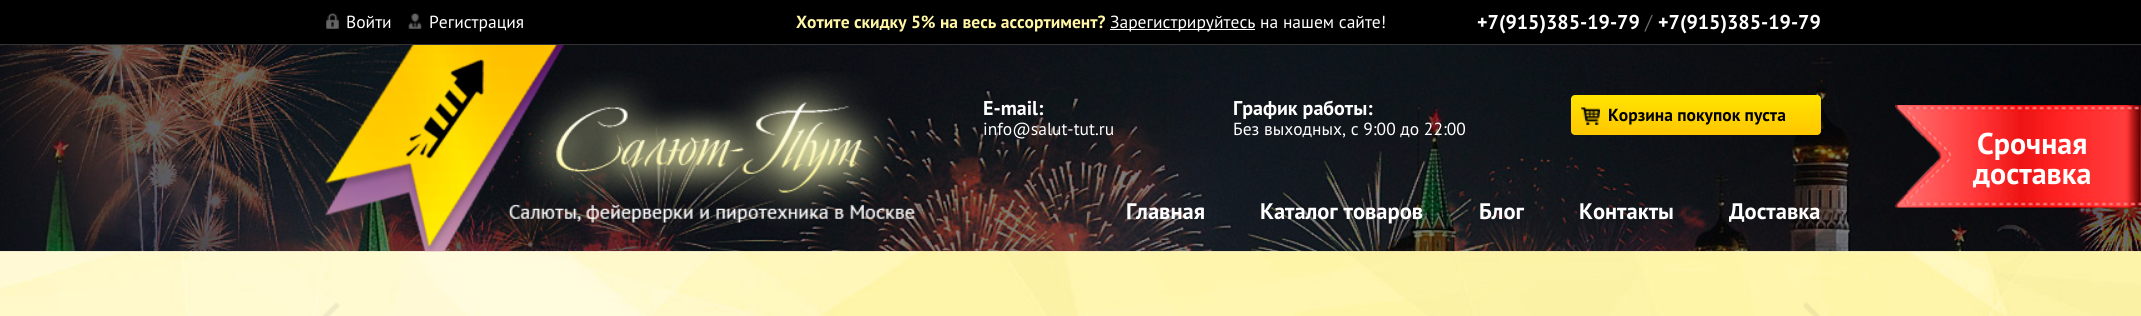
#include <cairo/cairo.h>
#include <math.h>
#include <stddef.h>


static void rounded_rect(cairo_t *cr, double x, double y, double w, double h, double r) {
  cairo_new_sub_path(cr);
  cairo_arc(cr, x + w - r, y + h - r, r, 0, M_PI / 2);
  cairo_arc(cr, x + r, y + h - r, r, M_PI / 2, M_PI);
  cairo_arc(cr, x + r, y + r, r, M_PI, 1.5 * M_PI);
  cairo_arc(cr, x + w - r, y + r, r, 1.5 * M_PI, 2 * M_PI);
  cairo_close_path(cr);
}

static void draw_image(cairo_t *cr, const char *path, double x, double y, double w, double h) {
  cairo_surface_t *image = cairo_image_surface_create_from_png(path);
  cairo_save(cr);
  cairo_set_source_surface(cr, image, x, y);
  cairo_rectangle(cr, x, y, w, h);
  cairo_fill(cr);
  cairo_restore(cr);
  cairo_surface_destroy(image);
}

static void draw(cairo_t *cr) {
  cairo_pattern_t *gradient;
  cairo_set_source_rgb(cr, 1, 1, 1);
  cairo_paint(cr);
  cairo_set_source_rgb(cr, 0, 0, 0);
  cairo_rectangle(cr, 0, 0, 2141, 44);
  cairo_fill(cr);
  cairo_set_source_rgb(cr, 51 / 255.0, 51 / 255.0, 51 / 255.0);
  cairo_rectangle(cr, 0, 44, 2141, 1);
  cairo_fill(cr);
  draw_image(cr, "images/1.png", 326, 13, 13, 16);
  draw_image(cr, "images/2.png", 408, 13, 14, 16);
  cairo_set_source_rgb(cr, 1, 1, 1);
  cairo_rectangle(cr, 1110, 29, 145, 1);
  cairo_fill(cr);
  draw_image(cr, "images/3.png", 0, 45, 2141, 207);
  draw_image(cr, "images/4.png", 325, 45, 590, 207);
  gradient = cairo_pattern_create_linear(1696, 95, 1696, 135);
  cairo_pattern_add_color_stop_rgba(gradient, 0, 1, 228 / 255.0, 0, 1);
  cairo_pattern_add_color_stop_rgba(gradient, 1, 1, 198 / 255.0, 0, 1);
  cairo_set_source(cr, gradient);
  cairo_pattern_destroy(gradient);
  rounded_rect(cr, 1571, 95, 250, 40, 4);
  cairo_fill(cr);
  draw_image(cr, "images/5.png", 1581, 107, 19, 18);
  draw_image(cr, "images/6.png", 1895, 105, 246, 103);
  draw_image(cr, "images/7.png", 0, 251, 2141, 65);
  draw_image(cr, "images/8.png", 323, 302, 17, 14);
  draw_image(cr, "images/9.png", 1803, 302, 17, 14);
  cairo_select_font_face(cr, "PT Sans", CAIRO_FONT_SLANT_NORMAL, CAIRO_FONT_WEIGHT_NORMAL);
  cairo_set_font_size(cr, 17.5);
  cairo_set_source_rgb(cr, 1, 1, 1);
  cairo_move_to(cr, 346, 28);
  cairo_show_text(cr, "Войти");
  cairo_move_to(cr, 429, 28);
  cairo_show_text(cr, "Регистрация");
  cairo_select_font_face(cr, "PT Sans", CAIRO_FONT_SLANT_NORMAL, CAIRO_FONT_WEIGHT_BOLD);
  cairo_set_source_rgb(cr, 1, 245 / 255.0, 164 / 255.0);
  cairo_move_to(cr, 796, 28);
  cairo_show_text(cr, "Хотите скидку 5% на весь ассортимент?");
  cairo_select_font_face(cr, "PT Sans", CAIRO_FONT_SLANT_NORMAL, CAIRO_FONT_WEIGHT_NORMAL);
  cairo_set_source_rgb(cr, 1, 1, 1);
  cairo_move_to(cr, 1110, 28);
  cairo_show_text(cr, "Зарегистрируйтесь на нашем сайте!");
  cairo_select_font_face(cr, "PT Sans", CAIRO_FONT_SLANT_NORMAL, CAIRO_FONT_WEIGHT_BOLD);
  cairo_set_font_size(cr, 20);
  cairo_move_to(cr, 1477, 29);
  cairo_show_text(cr, "+7(915)385-19-79");
  cairo_select_font_face(cr, "PT Sans", CAIRO_FONT_SLANT_NORMAL, CAIRO_FONT_WEIGHT_NORMAL);
  cairo_set_source_rgb(cr, 102 / 255.0, 102 / 255.0, 102 / 255.0);
  cairo_move_to(cr, 1645, 29);
  cairo_show_text(cr, "/");
  cairo_select_font_face(cr, "PT Sans", CAIRO_FONT_SLANT_NORMAL, CAIRO_FONT_WEIGHT_BOLD);
  cairo_set_source_rgb(cr, 1, 1, 1);
  cairo_move_to(cr, 1658, 29);
  cairo_show_text(cr, "+7(915)385-19-79");
  cairo_move_to(cr, 983, 115);
  cairo_show_text(cr, "E-mail:");
  cairo_select_font_face(cr, "PT Sans", CAIRO_FONT_SLANT_NORMAL, CAIRO_FONT_WEIGHT_NORMAL);
  cairo_set_font_size(cr, 17.5);
  cairo_move_to(cr, 983, 135);
  cairo_show_text(cr, "info@salut-tut.ru");
  cairo_select_font_face(cr, "PT Sans", CAIRO_FONT_SLANT_NORMAL, CAIRO_FONT_WEIGHT_BOLD);
  cairo_set_font_size(cr, 20);
  cairo_move_to(cr, 1233, 115);
  cairo_show_text(cr, "График работы:");
  cairo_select_font_face(cr, "PT Sans", CAIRO_FONT_SLANT_NORMAL, CAIRO_FONT_WEIGHT_NORMAL);
  cairo_set_font_size(cr, 17.5);
  cairo_move_to(cr, 1233, 135);
  cairo_show_text(cr, "Без выходных, с 9:00 до 22:00");
  cairo_select_font_face(cr, "PT Sans", CAIRO_FONT_SLANT_NORMAL, CAIRO_FONT_WEIGHT_BOLD);
  cairo_set_source_rgb(cr, 0, 0, 0);
  cairo_move_to(cr, 1608, 121);
  cairo_show_text(cr, "Корзина покупок пуста");
  cairo_set_font_size(cr, 22.5);
  cairo_set_source_rgb(cr, 1, 1, 1);
  cairo_move_to(cr, 1126, 219);
  cairo_show_text(cr, "Главная");
  cairo_move_to(cr, 1260, 219);
  cairo_show_text(cr, "Каталог товаров");
  cairo_move_to(cr, 1479, 219);
  cairo_show_text(cr, "Блог");
  cairo_move_to(cr, 1579, 219);
  cairo_show_text(cr, "Контакты");
  cairo_move_to(cr, 1729, 219);
  cairo_show_text(cr, "Доставка");
  cairo_set_font_size(cr, 30);
  cairo_move_to(cr, 1977, 154);
  cairo_show_text(cr, "Срочная");
  cairo_move_to(cr, 1973, 184);
  cairo_show_text(cr, "доставка");
}

int main(void) {
  cairo_surface_t *surface = cairo_image_surface_create(CAIRO_FORMAT_RGB24, 2141, 316);
  cairo_t *cr = cairo_create(surface);
  cairo_font_options_t *options = cairo_font_options_create();
  cairo_font_options_set_hint_metrics(options, CAIRO_HINT_METRICS_OFF);
  cairo_font_options_set_hint_style(options, CAIRO_HINT_STYLE_NONE);
  cairo_set_font_options(cr, options);
  cairo_set_miter_limit(cr, 4);
  draw(cr);
  cairo_surface_write_to_png(surface, "out.png");
  cairo_font_options_destroy(options);
  cairo_destroy(cr);
  cairo_surface_destroy(surface);
  return 0;
}
